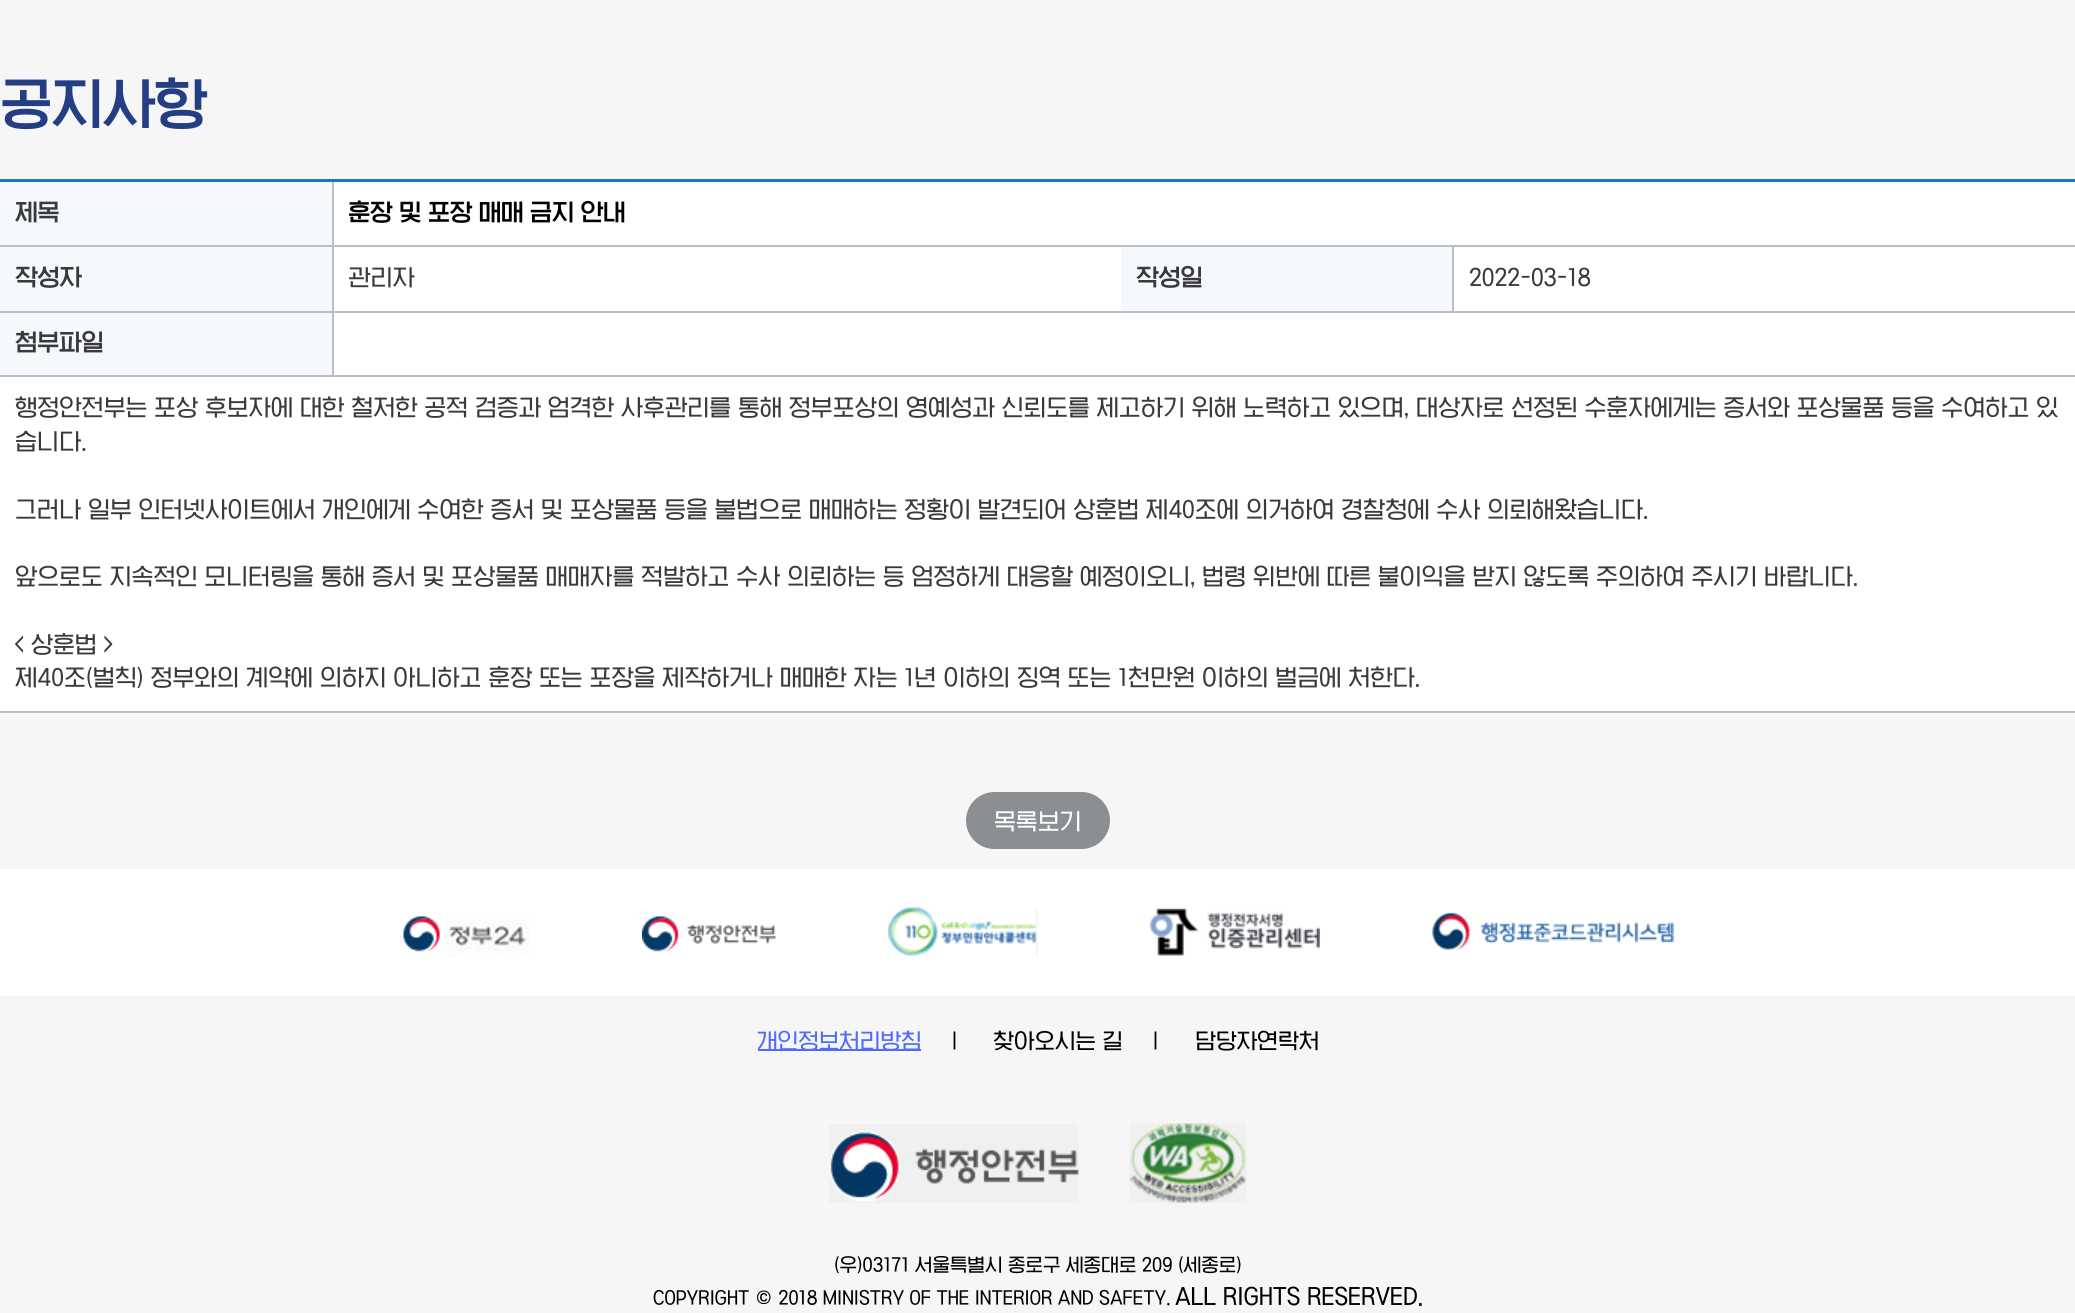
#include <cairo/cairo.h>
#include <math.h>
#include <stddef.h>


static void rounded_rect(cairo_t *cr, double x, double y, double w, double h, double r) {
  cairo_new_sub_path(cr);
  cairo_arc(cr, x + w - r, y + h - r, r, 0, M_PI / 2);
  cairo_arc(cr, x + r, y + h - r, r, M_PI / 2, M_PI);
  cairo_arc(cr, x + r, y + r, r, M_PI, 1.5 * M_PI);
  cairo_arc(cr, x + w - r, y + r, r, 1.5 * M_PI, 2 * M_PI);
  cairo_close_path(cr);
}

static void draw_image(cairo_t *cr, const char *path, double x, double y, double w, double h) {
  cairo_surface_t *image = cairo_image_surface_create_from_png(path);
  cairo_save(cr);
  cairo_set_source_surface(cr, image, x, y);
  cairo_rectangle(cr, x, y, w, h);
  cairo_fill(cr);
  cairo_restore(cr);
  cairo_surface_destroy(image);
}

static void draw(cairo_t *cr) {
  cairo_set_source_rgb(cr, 246 / 255.0, 246 / 255.0, 246 / 255.0);
  cairo_paint(cr);
  cairo_set_source_rgb(cr, 245 / 255.0, 249 / 255.0, 253 / 255.0);
  cairo_rectangle(cr, 0, 182, 332, 63);
  cairo_fill(cr);
  cairo_set_source_rgb(cr, 187 / 255.0, 190 / 255.0, 195 / 255.0);
  cairo_rectangle(cr, 1452, 311, 623, 2);
  cairo_fill(cr);
  cairo_rectangle(cr, 1452, 245, 2, 67);
  cairo_fill(cr);
  cairo_rectangle(cr, 332, 375, 1743, 2);
  cairo_fill(cr);
  cairo_rectangle(cr, 332, 311, 2, 66);
  cairo_fill(cr);
  cairo_rectangle(cr, 332, 311, 1122, 2);
  cairo_fill(cr);
  cairo_rectangle(cr, 332, 245, 2, 67);
  cairo_fill(cr);
  cairo_rectangle(cr, 332, 245, 1743, 2);
  cairo_fill(cr);
  cairo_rectangle(cr, 332, 179, 2, 67);
  cairo_fill(cr);
  cairo_rectangle(cr, 0, 245, 333, 2);
  cairo_fill(cr);
  cairo_set_source_rgb(cr, 1, 1, 1);
  cairo_rectangle(cr, 334, 182, 1741, 63);
  cairo_fill(cr);
  cairo_set_source_rgb(cr, 25 / 255.0, 118 / 255.0, 193 / 255.0);
  cairo_rectangle(cr, 0, 179, 2075, 3);
  cairo_fill(cr);
  cairo_set_source_rgb(cr, 245 / 255.0, 249 / 255.0, 253 / 255.0);
  cairo_rectangle(cr, 0, 247, 332, 64);
  cairo_fill(cr);
  cairo_set_source_rgb(cr, 187 / 255.0, 190 / 255.0, 195 / 255.0);
  cairo_rectangle(cr, 0, 311, 333, 2);
  cairo_fill(cr);
  cairo_set_source_rgb(cr, 1, 1, 1);
  cairo_rectangle(cr, 334, 247, 787, 64);
  cairo_fill(cr);
  cairo_set_source_rgb(cr, 245 / 255.0, 249 / 255.0, 253 / 255.0);
  cairo_rectangle(cr, 1121, 247, 331, 64);
  cairo_fill(cr);
  cairo_set_source_rgb(cr, 1, 1, 1);
  cairo_rectangle(cr, 1454, 247, 621, 64);
  cairo_fill(cr);
  cairo_set_source_rgb(cr, 245 / 255.0, 249 / 255.0, 253 / 255.0);
  cairo_rectangle(cr, 0, 313, 332, 62);
  cairo_fill(cr);
  cairo_set_source_rgb(cr, 187 / 255.0, 190 / 255.0, 195 / 255.0);
  cairo_rectangle(cr, 0, 375, 333, 2);
  cairo_fill(cr);
  cairo_set_source_rgb(cr, 1, 1, 1);
  cairo_rectangle(cr, 334, 313, 1741, 62);
  cairo_fill(cr);
  cairo_rectangle(cr, 0, 377, 2075, 334);
  cairo_fill(cr);
  cairo_set_source_rgb(cr, 187 / 255.0, 190 / 255.0, 195 / 255.0);
  cairo_rectangle(cr, 0, 711, 2075, 2);
  cairo_fill(cr);
  cairo_set_source_rgb(cr, 139 / 255.0, 143 / 255.0, 146 / 255.0);
  rounded_rect(cr, 967, 793, 142, 55, 27.5);
  cairo_fill_preserve(cr);
  cairo_stroke(cr);
  cairo_set_source_rgb(cr, 1, 1, 1);
  cairo_rectangle(cr, 0, 869, 2075, 127);
  cairo_fill(cr);
  draw_image(cr, "images/1.png", 403, 916, 126, 41);
  draw_image(cr, "images/2.png", 642, 916, 134, 36);
  draw_image(cr, "images/3.png", 888, 907, 150, 50);
  draw_image(cr, "images/4.png", 1149, 907, 171, 49);
  draw_image(cr, "images/5.png", 1432, 912, 242, 38);
  cairo_set_source_rgb(cr, 79 / 255.0, 106 / 255.0, 1);
  cairo_rectangle(cr, 758, 1049, 163, 2);
  cairo_fill(cr);
  draw_image(cr, "images/6.png", 829, 1124, 250, 79);
  draw_image(cr, "images/7.png", 1129, 1123, 118, 80);
  cairo_select_font_face(cr, "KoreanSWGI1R", CAIRO_FONT_SLANT_NORMAL, CAIRO_FONT_WEIGHT_BOLD);
  cairo_set_font_size(cr, 52.5);
  cairo_set_source_rgb(cr, 36 / 255.0, 62 / 255.0, 132 / 255.0);
  cairo_move_to(cr, 0, 120);
  cairo_show_text(cr, "공지사항");
  cairo_set_font_size(cr, 22.5);
  cairo_set_source_rgb(cr, 58 / 255.0, 58 / 255.0, 58 / 255.0);
  cairo_move_to(cr, 15, 219);
  cairo_show_text(cr, "제목");
  cairo_set_source_rgb(cr, 0, 0, 0);
  cairo_move_to(cr, 348, 219);
  cairo_show_text(cr, "훈장 및 포장 매매 금지 안내");
  cairo_set_source_rgb(cr, 58 / 255.0, 58 / 255.0, 58 / 255.0);
  cairo_move_to(cr, 15, 284);
  cairo_show_text(cr, "작성자");
  cairo_select_font_face(cr, "KoreanSWGI1R", CAIRO_FONT_SLANT_NORMAL, CAIRO_FONT_WEIGHT_NORMAL);
  cairo_move_to(cr, 348, 284);
  cairo_show_text(cr, "관리자");
  cairo_select_font_face(cr, "KoreanSWGI1R", CAIRO_FONT_SLANT_NORMAL, CAIRO_FONT_WEIGHT_BOLD);
  cairo_move_to(cr, 1136, 284);
  cairo_show_text(cr, "작성일");
  cairo_select_font_face(cr, "KoreanSWGI1R", CAIRO_FONT_SLANT_NORMAL, CAIRO_FONT_WEIGHT_NORMAL);
  cairo_move_to(cr, 1469, 284);
  cairo_show_text(cr, "2022-03-18");
  cairo_select_font_face(cr, "KoreanSWGI1R", CAIRO_FONT_SLANT_NORMAL, CAIRO_FONT_WEIGHT_BOLD);
  cairo_move_to(cr, 15, 349);
  cairo_show_text(cr, "첨부파일");
  cairo_select_font_face(cr, "KoreanSWGI1R", CAIRO_FONT_SLANT_NORMAL, CAIRO_FONT_WEIGHT_NORMAL);
  cairo_move_to(cr, 15, 414);
  cairo_show_text(cr, "행정안전부는 포상 후보자에 대한 철저한 공적 검증과 엄격한 사후관리를 통해 정부포상의 영예성과 신뢰도를 제고하기 위해 노력하고 있으며, 대상자로 선정된 수훈자에게는 증서와 포상물품 등을 수여하고 있");
  cairo_move_to(cr, 15, 448);
  cairo_show_text(cr, "습니다.");
  cairo_move_to(cr, 15, 516);
  cairo_show_text(cr, "그러나 일부 인터넷사이트에서 개인에게 수여한 증서 및 포상물품 등을 불법으로 매매하는 정황이 발견되어 상훈법 제40조에 의거하여 경찰청에 수사 의뢰해왔습니다.");
  cairo_move_to(cr, 15, 583);
  cairo_show_text(cr, "앞으로도 지속적인 모니터링을 통해 증서 및 포상물품 매매자를 적발하고 수사 의뢰하는 등 엄정하게 대응할 예정이오니, 법령 위반에 따른 불이익을 받지 않도록 주의하여 주시기 바랍니다.");
  cairo_move_to(cr, 15, 651);
  cairo_show_text(cr, "< 상훈법 >");
  cairo_move_to(cr, 15, 684);
  cairo_show_text(cr, "제40조(벌칙) 정부와의 계약에 의하지 아니하고 훈장 또는 포장을 제작하거나 매매한 자는 1년 이하의 징역 또는 1천만원 이하의 벌금에 처한다.");
  cairo_set_source_rgb(cr, 1, 1, 1);
  cairo_move_to(cr, 994, 828);
  cairo_show_text(cr, "목록보기");
  cairo_set_font_size(cr, 21);
  cairo_set_source_rgb(cr, 79 / 255.0, 106 / 255.0, 1);
  cairo_move_to(cr, 757, 1047);
  cairo_show_text(cr, "개인정보처리방침");
  cairo_set_source_rgb(cr, 0, 0, 0);
  cairo_move_to(cr, 952, 1047);
  cairo_show_text(cr, "|");
  cairo_move_to(cr, 993, 1047);
  cairo_show_text(cr, "찾아오시는 길");
  cairo_move_to(cr, 1153, 1047);
  cairo_show_text(cr, "|");
  cairo_move_to(cr, 1195, 1047);
  cairo_show_text(cr, "담당자연락처");
  cairo_set_font_size(cr, 18);
  cairo_move_to(cr, 834, 1270);
  cairo_show_text(cr, "(우)03171 서울특별시 종로구 세종대로 209 (세종로)");
  cairo_move_to(cr, 653, 1303);
  cairo_show_text(cr, "COPYRIGHT © 2018 MINISTRY OF THE INTERIOR AND SAFETY.");
  cairo_set_font_size(cr, 22.5);
  cairo_move_to(cr, 1175, 1303);
  cairo_show_text(cr, "ALL RIGHTS RESERVED.");
}

int main(void) {
  cairo_surface_t *surface = cairo_image_surface_create(CAIRO_FORMAT_RGB24, 2075, 1313);
  cairo_t *cr = cairo_create(surface);
  cairo_font_options_t *options = cairo_font_options_create();
  cairo_font_options_set_hint_metrics(options, CAIRO_HINT_METRICS_OFF);
  cairo_font_options_set_hint_style(options, CAIRO_HINT_STYLE_NONE);
  cairo_set_font_options(cr, options);
  cairo_set_miter_limit(cr, 4);
  draw(cr);
  cairo_surface_write_to_png(surface, "out.png");
  cairo_font_options_destroy(options);
  cairo_destroy(cr);
  cairo_surface_destroy(surface);
  return 0;
}
